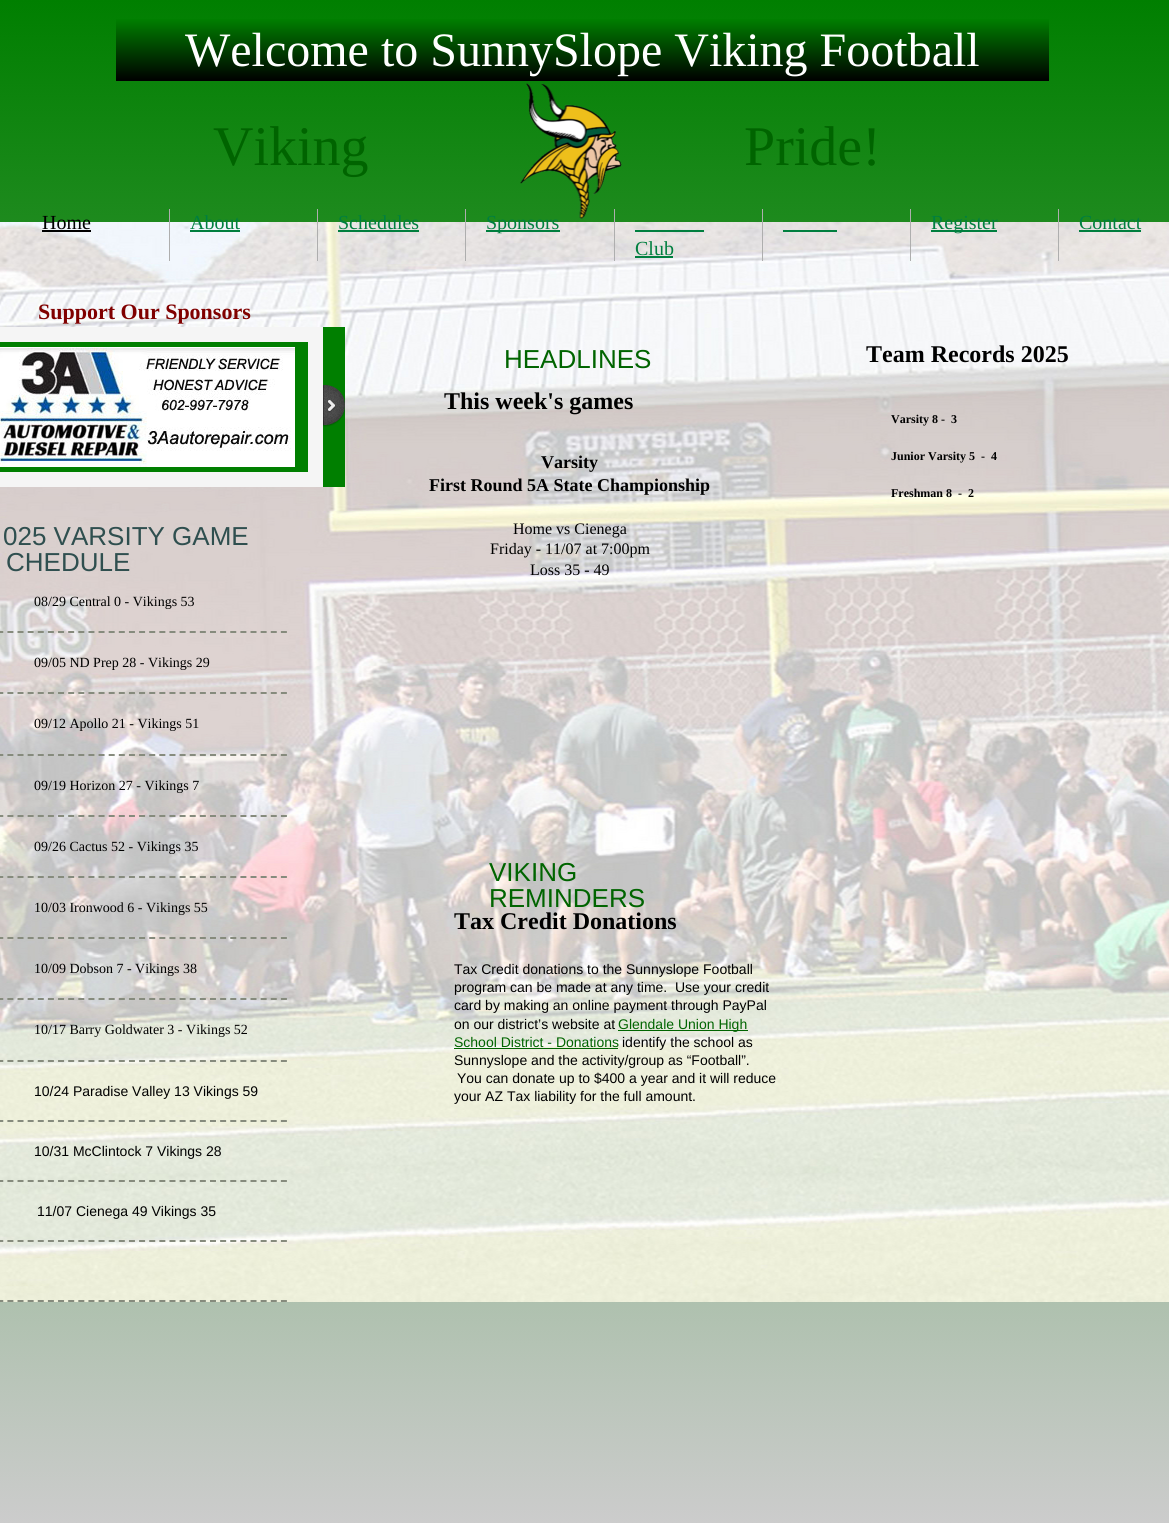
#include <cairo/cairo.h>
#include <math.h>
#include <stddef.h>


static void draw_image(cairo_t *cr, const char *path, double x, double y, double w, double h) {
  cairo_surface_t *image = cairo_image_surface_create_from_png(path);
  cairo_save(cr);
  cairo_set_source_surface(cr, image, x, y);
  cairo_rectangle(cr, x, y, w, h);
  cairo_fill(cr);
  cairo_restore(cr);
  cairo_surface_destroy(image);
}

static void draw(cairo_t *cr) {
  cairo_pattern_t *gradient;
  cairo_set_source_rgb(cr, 1, 1, 1);
  cairo_paint(cr);
  draw_image(cr, "images/1.png", 0, 0, 1169, 1523);
  gradient = cairo_pattern_create_linear(583, 19, 583, 81);
  cairo_pattern_add_color_stop_rgba(gradient, 0, 0, 127 / 255.0, 0, 1);
  cairo_pattern_add_color_stop_rgba(gradient, 1, 0, 0, 0, 1);
  cairo_set_source(cr, gradient);
  cairo_pattern_destroy(gradient);
  cairo_rectangle(cr, 116, 19, 933, 62);
  cairo_fill(cr);
  draw_image(cr, "images/2.png", 520, 83, 102, 136);
  cairo_set_source_rgb(cr, 174 / 255.0, 174 / 255.0, 174 / 255.0);
  cairo_rectangle(cr, 169, 209, 1, 52);
  cairo_fill(cr);
  cairo_set_source_rgb(cr, 0, 0, 0);
  cairo_rectangle(cr, 42, 230, 49, 2);
  cairo_fill(cr);
  cairo_set_source_rgb(cr, 174 / 255.0, 174 / 255.0, 174 / 255.0);
  cairo_rectangle(cr, 317, 209, 1, 52);
  cairo_fill(cr);
  cairo_set_source_rgb(cr, 0, 127 / 255.0, 63 / 255.0);
  cairo_rectangle(cr, 190, 230, 50, 2);
  cairo_fill(cr);
  cairo_set_source_rgb(cr, 174 / 255.0, 174 / 255.0, 174 / 255.0);
  cairo_rectangle(cr, 465, 209, 1, 52);
  cairo_fill(cr);
  cairo_set_source_rgb(cr, 0, 127 / 255.0, 63 / 255.0);
  cairo_rectangle(cr, 338, 230, 81, 2);
  cairo_fill(cr);
  cairo_set_source_rgb(cr, 174 / 255.0, 174 / 255.0, 174 / 255.0);
  cairo_rectangle(cr, 614, 209, 1, 52);
  cairo_fill(cr);
  cairo_set_source_rgb(cr, 0, 127 / 255.0, 63 / 255.0);
  cairo_rectangle(cr, 486, 230, 74, 2);
  cairo_fill(cr);
  cairo_set_source_rgb(cr, 174 / 255.0, 174 / 255.0, 174 / 255.0);
  cairo_rectangle(cr, 910, 209, 1, 52);
  cairo_fill(cr);
  cairo_set_source_rgb(cr, 0, 127 / 255.0, 63 / 255.0);
  cairo_rectangle(cr, 783, 230, 54, 2);
  cairo_fill(cr);
  cairo_set_source_rgb(cr, 174 / 255.0, 174 / 255.0, 174 / 255.0);
  cairo_rectangle(cr, 1058, 209, 1, 52);
  cairo_fill(cr);
  cairo_set_source_rgb(cr, 0, 127 / 255.0, 63 / 255.0);
  cairo_rectangle(cr, 931, 230, 66, 2);
  cairo_fill(cr);
  cairo_rectangle(cr, 1079, 230, 62, 2);
  cairo_fill(cr);
  cairo_set_source_rgb(cr, 174 / 255.0, 174 / 255.0, 174 / 255.0);
  cairo_rectangle(cr, 762, 209, 1, 52);
  cairo_fill(cr);
  cairo_set_source_rgb(cr, 0, 127 / 255.0, 63 / 255.0);
  cairo_rectangle(cr, 635, 230, 69, 2);
  cairo_fill(cr);
  cairo_rectangle(cr, 635, 256, 38, 2);
  cairo_fill(cr);
  cairo_set_source_rgb(cr, 0, 127 / 255.0, 0);
  cairo_rectangle(cr, 0, 327, 345, 160);
  cairo_fill(cr);
  cairo_rectangle(cr, -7.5, 334.5, 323, 145);
  cairo_set_source_rgb(cr, 245 / 255.0, 245 / 255.0, 245 / 255.0);
  cairo_set_line_width(cr, 15);
  cairo_stroke(cr);
  draw_image(cr, "images/3.png", 0, 347, 295, 120);
  draw_image(cr, "images/4.png", 323, 385, 22, 42);
  cairo_new_path(cr);
  cairo_move_to(cr, -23, 632);
  cairo_line_to(cr, 287, 632);
  cairo_set_source_rgb(cr, 134 / 255.0, 139 / 255.0, 125 / 255.0);
  cairo_set_line_width(cr, 2);
  cairo_set_dash(cr, (double[]){6, 4.13}, 2, 0);
  cairo_stroke(cr);
  cairo_new_path(cr);
  cairo_move_to(cr, -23, 693);
  cairo_line_to(cr, 287, 693);
  cairo_stroke(cr);
  cairo_new_path(cr);
  cairo_move_to(cr, -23, 755);
  cairo_line_to(cr, 287, 755);
  cairo_stroke(cr);
  cairo_new_path(cr);
  cairo_move_to(cr, -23, 816);
  cairo_line_to(cr, 287, 816);
  cairo_stroke(cr);
  cairo_new_path(cr);
  cairo_move_to(cr, -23, 877);
  cairo_line_to(cr, 287, 877);
  cairo_stroke(cr);
  cairo_new_path(cr);
  cairo_move_to(cr, -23, 938);
  cairo_line_to(cr, 287, 938);
  cairo_stroke(cr);
  cairo_new_path(cr);
  cairo_move_to(cr, -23, 999);
  cairo_line_to(cr, 287, 999);
  cairo_stroke(cr);
  cairo_new_path(cr);
  cairo_move_to(cr, -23, 1061);
  cairo_line_to(cr, 287, 1061);
  cairo_stroke(cr);
  cairo_new_path(cr);
  cairo_move_to(cr, -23, 1121);
  cairo_line_to(cr, 287, 1121);
  cairo_stroke(cr);
  cairo_new_path(cr);
  cairo_move_to(cr, -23, 1181);
  cairo_line_to(cr, 287, 1181);
  cairo_stroke(cr);
  cairo_new_path(cr);
  cairo_move_to(cr, -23, 1241);
  cairo_line_to(cr, 287, 1241);
  cairo_stroke(cr);
  cairo_new_path(cr);
  cairo_move_to(cr, -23, 1301);
  cairo_line_to(cr, 287, 1301);
  cairo_stroke(cr);
  cairo_set_source_rgb(cr, 0, 100 / 255.0, 0);
  cairo_rectangle(cr, 618, 1030, 130, 1);
  cairo_fill(cr);
  cairo_rectangle(cr, 454, 1048, 164, 1);
  cairo_fill(cr);
  cairo_select_font_face(cr, "Liberation Serif", CAIRO_FONT_SLANT_NORMAL, CAIRO_FONT_WEIGHT_NORMAL);
  cairo_set_font_size(cr, 48);
  cairo_set_source_rgb(cr, 1, 1, 1);
  cairo_move_to(cr, 185, 66);
  cairo_show_text(cr, "Welcome to SunnySlope Viking Football");
  cairo_set_font_size(cr, 56);
  cairo_set_source_rgb(cr, 0, 100 / 255.0, 0);
  cairo_move_to(cr, 213, 165);
  cairo_show_text(cr, "Viking");
  cairo_move_to(cr, 744, 165);
  cairo_show_text(cr, "Pride!");
  cairo_set_font_size(cr, 20);
  cairo_set_source_rgb(cr, 0, 0, 0);
  cairo_move_to(cr, 42, 229);
  cairo_show_text(cr, "Home");
  cairo_set_source_rgb(cr, 0, 127 / 255.0, 63 / 255.0);
  cairo_move_to(cr, 190, 229);
  cairo_show_text(cr, "About");
  cairo_move_to(cr, 338, 229);
  cairo_show_text(cr, "Schedules");
  cairo_move_to(cr, 486, 229);
  cairo_show_text(cr, "Sponsors");
  cairo_move_to(cr, 931, 229);
  cairo_show_text(cr, "Register");
  cairo_move_to(cr, 1079, 229);
  cairo_show_text(cr, "Contact");
  cairo_move_to(cr, 635, 255);
  cairo_show_text(cr, "Club");
  cairo_select_font_face(cr, "Liberation Serif", CAIRO_FONT_SLANT_NORMAL, CAIRO_FONT_WEIGHT_BOLD);
  cairo_set_font_size(cr, 22);
  cairo_set_source_rgb(cr, 128 / 255.0, 0, 0);
  cairo_move_to(cr, 38, 319);
  cairo_show_text(cr, "Support Our Sponsors");
  cairo_select_font_face(cr, "Liberation Sans", CAIRO_FONT_SLANT_NORMAL, CAIRO_FONT_WEIGHT_NORMAL);
  cairo_set_font_size(cr, 26);
  cairo_set_source_rgb(cr, 0, 100 / 255.0, 0);
  cairo_move_to(cr, 504, 368);
  cairo_show_text(cr, "HEADLINES");
  cairo_select_font_face(cr, "Liberation Serif", CAIRO_FONT_SLANT_NORMAL, CAIRO_FONT_WEIGHT_BOLD);
  cairo_set_font_size(cr, 24);
  cairo_set_source_rgb(cr, 0, 0, 0);
  cairo_move_to(cr, 866, 362);
  cairo_show_text(cr, "Team Records 2025");
  cairo_move_to(cr, 444, 409);
  cairo_show_text(cr, "This week's games");
  cairo_select_font_face(cr, "Liberation Sans", CAIRO_FONT_SLANT_NORMAL, CAIRO_FONT_WEIGHT_NORMAL);
  cairo_set_font_size(cr, 26);
  cairo_set_source_rgb(cr, 47 / 255.0, 79 / 255.0, 79 / 255.0);
  cairo_move_to(cr, 3, 545);
  cairo_show_text(cr, "025 VARSITY GAME");
  cairo_move_to(cr, 6, 571);
  cairo_show_text(cr, "CHEDULE");
  cairo_select_font_face(cr, "Liberation Serif", CAIRO_FONT_SLANT_NORMAL, CAIRO_FONT_WEIGHT_BOLD);
  cairo_set_font_size(cr, 18);
  cairo_set_source_rgb(cr, 0, 0, 0);
  cairo_move_to(cr, 541, 468);
  cairo_show_text(cr, "Varsity");
  cairo_move_to(cr, 429, 491);
  cairo_show_text(cr, "First Round 5A State Championship");
  cairo_select_font_face(cr, "Liberation Serif", CAIRO_FONT_SLANT_NORMAL, CAIRO_FONT_WEIGHT_NORMAL);
  cairo_set_font_size(cr, 16);
  cairo_move_to(cr, 513, 534);
  cairo_show_text(cr, "Home vs Cienega");
  cairo_move_to(cr, 490, 554);
  cairo_show_text(cr, "Friday - 11/07 at 7:00pm");
  cairo_move_to(cr, 530, 575);
  cairo_show_text(cr, "Loss 35 - 49");
  cairo_select_font_face(cr, "Liberation Serif", CAIRO_FONT_SLANT_NORMAL, CAIRO_FONT_WEIGHT_BOLD);
  cairo_set_font_size(cr, 12);
  cairo_move_to(cr, 891, 423);
  cairo_show_text(cr, "Varsity 8 -  3");
  cairo_move_to(cr, 891, 460);
  cairo_show_text(cr, "Junior Varsity 5  -  4");
  cairo_move_to(cr, 891, 497);
  cairo_show_text(cr, "Freshman 8  -  2");
  cairo_select_font_face(cr, "Liberation Serif", CAIRO_FONT_SLANT_NORMAL, CAIRO_FONT_WEIGHT_NORMAL);
  cairo_set_font_size(cr, 14);
  cairo_move_to(cr, 34, 606);
  cairo_show_text(cr, "08/29 Central 0 - Vikings 53");
  cairo_move_to(cr, 34, 667);
  cairo_show_text(cr, "09/05 ND Prep 28 - Vikings 29");
  cairo_move_to(cr, 34, 728);
  cairo_show_text(cr, "09/12 Apollo 21 - Vikings 51");
  cairo_move_to(cr, 34, 790);
  cairo_show_text(cr, "09/19 Horizon 27 - Vikings 7");
  cairo_move_to(cr, 34, 851);
  cairo_show_text(cr, "09/26 Cactus 52 - Vikings 35");
  cairo_move_to(cr, 34, 912);
  cairo_show_text(cr, "10/03 Ironwood 6 - Vikings 55");
  cairo_move_to(cr, 34, 973);
  cairo_show_text(cr, "10/09 Dobson 7 - Vikings 38");
  cairo_move_to(cr, 34, 1034);
  cairo_show_text(cr, "10/17 Barry Goldwater 3 - Vikings 52");
  cairo_select_font_face(cr, "Liberation Sans", CAIRO_FONT_SLANT_NORMAL, CAIRO_FONT_WEIGHT_NORMAL);
  cairo_move_to(cr, 34, 1096);
  cairo_show_text(cr, "10/24 Paradise Valley 13 Vikings 59");
  cairo_move_to(cr, 34, 1156);
  cairo_show_text(cr, "10/31 McClintock 7 Vikings 28");
  cairo_move_to(cr, 37, 1216);
  cairo_show_text(cr, "11/07 Cienega 49 Vikings 35");
  cairo_set_font_size(cr, 26);
  cairo_set_source_rgb(cr, 0, 100 / 255.0, 0);
  cairo_move_to(cr, 489, 881);
  cairo_show_text(cr, "VIKING");
  cairo_move_to(cr, 489, 907);
  cairo_show_text(cr, "REMINDERS");
  cairo_select_font_face(cr, "Liberation Serif", CAIRO_FONT_SLANT_NORMAL, CAIRO_FONT_WEIGHT_BOLD);
  cairo_set_font_size(cr, 24);
  cairo_set_source_rgb(cr, 0, 0, 0);
  cairo_move_to(cr, 454, 929);
  cairo_show_text(cr, "Tax Credit Donations");
  cairo_select_font_face(cr, "Liberation Sans", CAIRO_FONT_SLANT_NORMAL, CAIRO_FONT_WEIGHT_NORMAL);
  cairo_set_font_size(cr, 14);
  cairo_move_to(cr, 454, 974);
  cairo_show_text(cr, "Tax Credit donations to the Sunnyslope Football");
  cairo_move_to(cr, 454, 992);
  cairo_show_text(cr, "program can be made at any time.  Use your credit");
  cairo_move_to(cr, 454, 1010);
  cairo_show_text(cr, "card by making an online payment through PayPal");
  cairo_move_to(cr, 454, 1029);
  cairo_show_text(cr, "on our district’s website at");
  cairo_set_source_rgb(cr, 0, 100 / 255.0, 0);
  cairo_move_to(cr, 618, 1029);
  cairo_show_text(cr, "Glendale Union High");
  cairo_move_to(cr, 454, 1047);
  cairo_show_text(cr, "School District - Donations");
  cairo_set_source_rgb(cr, 0, 0, 0);
  cairo_move_to(cr, 622, 1047);
  cairo_show_text(cr, "identify the school as");
  cairo_move_to(cr, 454, 1065);
  cairo_show_text(cr, "Sunnyslope and the activity/group as “Football”.");
  cairo_move_to(cr, 457, 1083);
  cairo_show_text(cr, "You can donate up to $400 a year and it will reduce");
  cairo_move_to(cr, 454, 1101);
  cairo_show_text(cr, "your AZ Tax liability for the full amount.");
}

int main(void) {
  cairo_surface_t *surface = cairo_image_surface_create(CAIRO_FORMAT_RGB24, 1169, 1523);
  cairo_t *cr = cairo_create(surface);
  cairo_font_options_t *options = cairo_font_options_create();
  cairo_font_options_set_hint_metrics(options, CAIRO_HINT_METRICS_OFF);
  cairo_font_options_set_hint_style(options, CAIRO_HINT_STYLE_NONE);
  cairo_set_font_options(cr, options);
  cairo_set_miter_limit(cr, 4);
  draw(cr);
  cairo_surface_write_to_png(surface, "out.png");
  cairo_font_options_destroy(options);
  cairo_destroy(cr);
  cairo_surface_destroy(surface);
  return 0;
}
